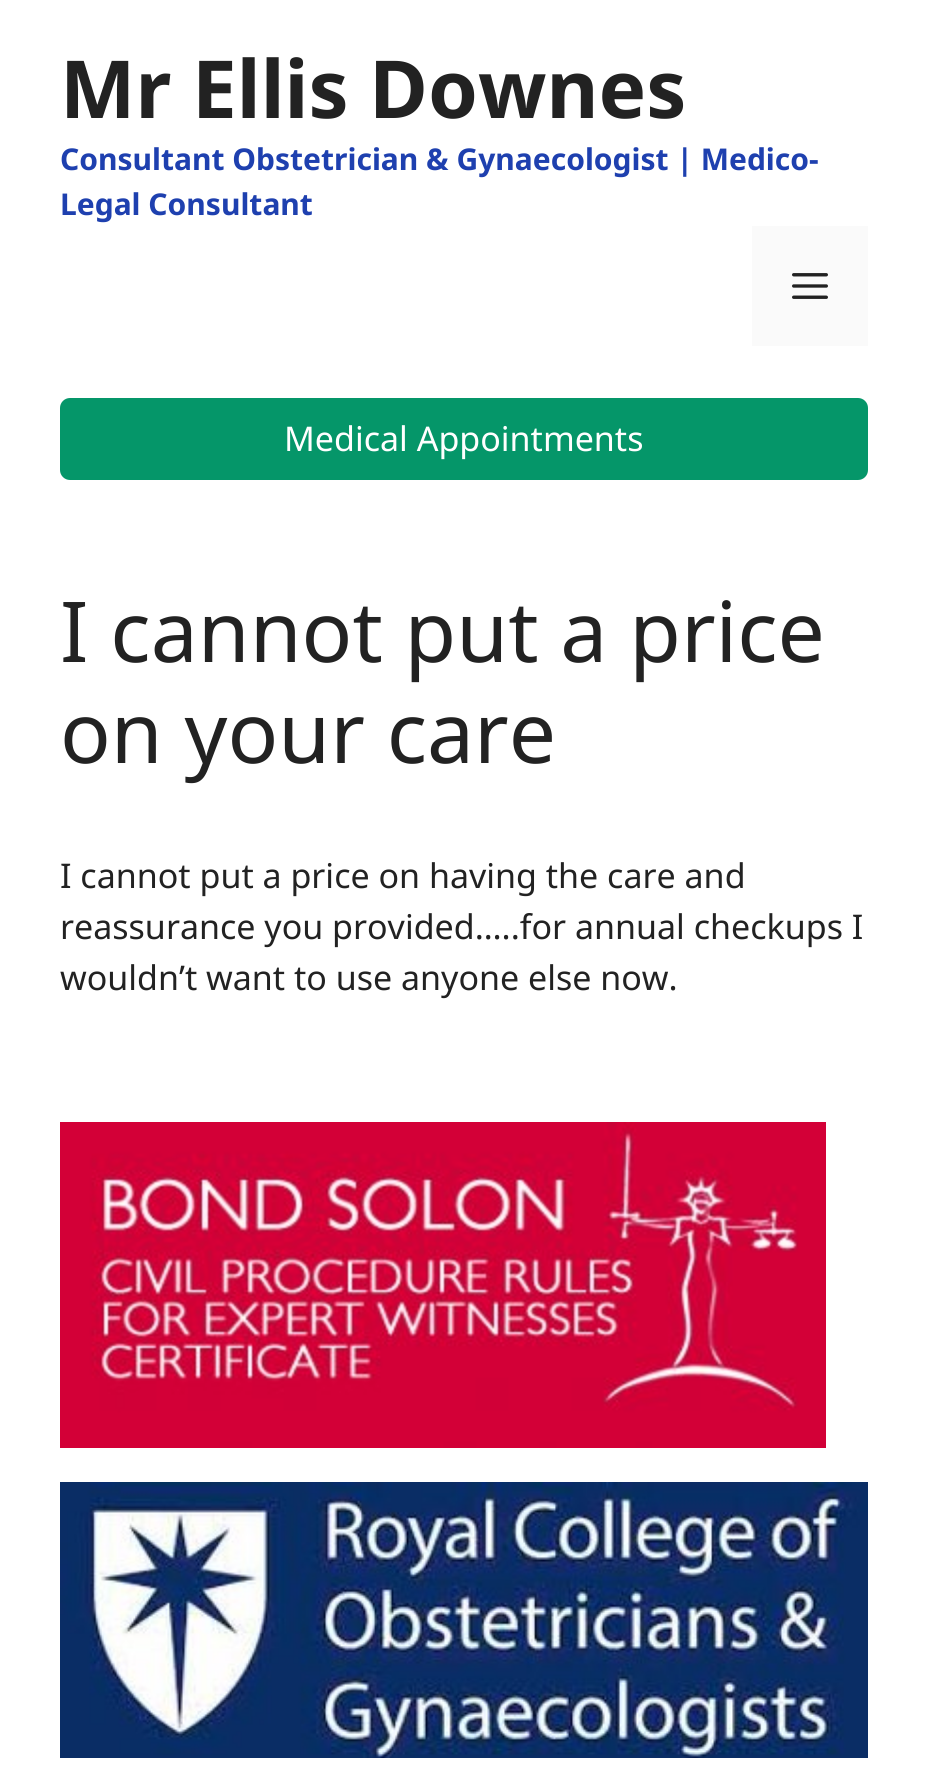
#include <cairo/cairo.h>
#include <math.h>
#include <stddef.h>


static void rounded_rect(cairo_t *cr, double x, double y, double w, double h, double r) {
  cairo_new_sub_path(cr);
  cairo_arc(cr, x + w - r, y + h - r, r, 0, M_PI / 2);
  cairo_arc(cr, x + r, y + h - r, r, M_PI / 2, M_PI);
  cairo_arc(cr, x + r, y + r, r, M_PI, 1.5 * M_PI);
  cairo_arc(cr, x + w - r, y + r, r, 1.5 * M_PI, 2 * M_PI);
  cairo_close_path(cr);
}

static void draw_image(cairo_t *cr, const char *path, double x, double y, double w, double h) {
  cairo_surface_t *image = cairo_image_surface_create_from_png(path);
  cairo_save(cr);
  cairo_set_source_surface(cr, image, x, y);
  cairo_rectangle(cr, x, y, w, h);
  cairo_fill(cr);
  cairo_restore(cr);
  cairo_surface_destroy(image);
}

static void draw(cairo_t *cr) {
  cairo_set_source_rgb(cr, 1, 1, 1);
  cairo_paint(cr);
  cairo_set_source_rgb(cr, 250 / 255.0, 250 / 255.0, 250 / 255.0);
  cairo_rectangle(cr, 752, 226, 116, 120);
  cairo_fill(cr);
  draw_image(cr, "images/1.png", 792, 273, 36, 26);
  cairo_set_source_rgb(cr, 5 / 255.0, 150 / 255.0, 105 / 255.0);
  rounded_rect(cr, 60, 398, 808, 82, 10);
  cairo_fill(cr);
  draw_image(cr, "images/2.png", 60, 1122, 766, 326);
  draw_image(cr, "images/3.png", 60, 1482, 808, 276);
  cairo_select_font_face(cr, "Noto Sans", CAIRO_FONT_SLANT_NORMAL, CAIRO_FONT_WEIGHT_BOLD);
  cairo_set_font_size(cr, 80);
  cairo_set_source_rgb(cr, 34 / 255.0, 34 / 255.0, 34 / 255.0);
  cairo_move_to(cr, 60, 118);
  cairo_show_text(cr, "Mr Ellis Downes");
  cairo_set_font_size(cr, 30);
  cairo_set_source_rgb(cr, 30 / 255.0, 64 / 255.0, 175 / 255.0);
  cairo_move_to(cr, 60, 170);
  cairo_show_text(cr, "Consultant Obstetrician & Gynaecologist | Medico-");
  cairo_move_to(cr, 60, 215);
  cairo_show_text(cr, "Legal Consultant");
  cairo_select_font_face(cr, "Noto Sans", CAIRO_FONT_SLANT_NORMAL, CAIRO_FONT_WEIGHT_NORMAL);
  cairo_set_font_size(cr, 34);
  cairo_set_source_rgb(cr, 1, 1, 1);
  cairo_move_to(cr, 284, 451);
  cairo_show_text(cr, "Medical Appointments");
  cairo_set_font_size(cr, 84);
  cairo_set_source_rgb(cr, 34 / 255.0, 34 / 255.0, 34 / 255.0);
  cairo_move_to(cr, 60, 662);
  cairo_show_text(cr, "I cannot put a price");
  cairo_move_to(cr, 60, 763);
  cairo_show_text(cr, "on your care");
  cairo_set_font_size(cr, 34);
  cairo_move_to(cr, 60, 888);
  cairo_show_text(cr, "I cannot put a price on having the care and");
  cairo_move_to(cr, 60, 939);
  cairo_show_text(cr, "reassurance you provided…..for annual checkups I");
  cairo_move_to(cr, 60, 990);
  cairo_show_text(cr, "wouldn’t want to use anyone else now.");
}

int main(void) {
  cairo_surface_t *surface = cairo_image_surface_create(CAIRO_FORMAT_RGB24, 927, 1780);
  cairo_t *cr = cairo_create(surface);
  cairo_font_options_t *options = cairo_font_options_create();
  cairo_font_options_set_hint_metrics(options, CAIRO_HINT_METRICS_OFF);
  cairo_font_options_set_hint_style(options, CAIRO_HINT_STYLE_NONE);
  cairo_set_font_options(cr, options);
  cairo_set_miter_limit(cr, 4);
  draw(cr);
  cairo_surface_write_to_png(surface, "out.png");
  cairo_font_options_destroy(options);
  cairo_destroy(cr);
  cairo_surface_destroy(surface);
  return 0;
}
